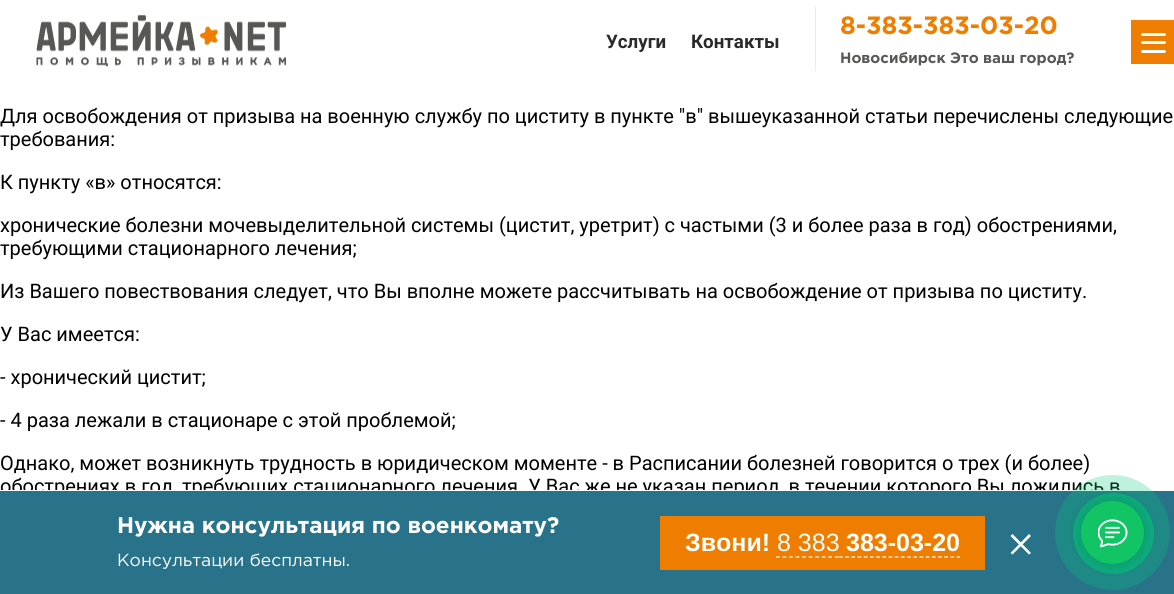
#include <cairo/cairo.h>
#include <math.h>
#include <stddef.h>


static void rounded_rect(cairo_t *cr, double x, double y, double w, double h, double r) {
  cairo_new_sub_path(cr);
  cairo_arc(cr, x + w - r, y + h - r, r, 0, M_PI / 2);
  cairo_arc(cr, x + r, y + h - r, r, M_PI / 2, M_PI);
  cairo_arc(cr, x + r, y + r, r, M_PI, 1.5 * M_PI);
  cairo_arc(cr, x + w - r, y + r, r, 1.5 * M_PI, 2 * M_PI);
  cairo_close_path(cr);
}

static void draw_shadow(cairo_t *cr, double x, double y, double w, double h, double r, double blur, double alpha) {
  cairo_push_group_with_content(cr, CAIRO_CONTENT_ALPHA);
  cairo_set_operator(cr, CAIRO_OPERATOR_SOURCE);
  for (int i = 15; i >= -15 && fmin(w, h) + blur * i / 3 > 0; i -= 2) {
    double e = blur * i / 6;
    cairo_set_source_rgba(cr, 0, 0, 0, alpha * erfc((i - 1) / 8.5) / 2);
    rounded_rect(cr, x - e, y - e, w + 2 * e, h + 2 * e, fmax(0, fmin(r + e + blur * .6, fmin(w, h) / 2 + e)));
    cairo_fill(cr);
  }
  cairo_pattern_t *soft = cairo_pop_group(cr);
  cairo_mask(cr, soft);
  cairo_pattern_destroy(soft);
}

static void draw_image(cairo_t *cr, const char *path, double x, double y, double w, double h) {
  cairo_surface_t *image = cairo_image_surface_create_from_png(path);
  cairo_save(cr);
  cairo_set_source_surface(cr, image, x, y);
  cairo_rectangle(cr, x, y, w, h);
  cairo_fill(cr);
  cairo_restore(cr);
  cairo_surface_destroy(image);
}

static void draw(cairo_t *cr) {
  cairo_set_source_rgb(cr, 1, 1, 1);
  cairo_paint(cr);
  draw_image(cr, "images/1.png", 36, 15, 250, 52);
  cairo_set_source_rgb(cr, 235 / 255.0, 235 / 255.0, 235 / 255.0);
  cairo_rectangle(cr, 815, 6, 1, 65);
  cairo_fill(cr);
  cairo_set_source_rgb(cr, 239 / 255.0, 125 / 255.0, 0);
  cairo_rectangle(cr, 1131, 20, 43, 44);
  cairo_fill(cr);
  cairo_set_source_rgb(cr, 1, 1, 1);
  rounded_rect(cr, 1141, 50, 25, 3, 1.5);
  cairo_fill(cr);
  rounded_rect(cr, 1141, 33, 25, 3, 1.5);
  cairo_fill(cr);
  rounded_rect(cr, 1141, 41, 25, 3, 1.5);
  cairo_fill(cr);
  cairo_select_font_face(cr, "Roboto", CAIRO_FONT_SLANT_NORMAL, CAIRO_FONT_WEIGHT_BOLD);
  cairo_set_font_size(cr, 18.75);
  cairo_set_source_rgb(cr, 42 / 255.0, 42 / 255.0, 42 / 255.0);
  cairo_move_to(cr, 606, 48);
  cairo_show_text(cr, "Услуги");
  cairo_move_to(cr, 691, 48);
  cairo_show_text(cr, "Контакты");
  cairo_select_font_face(cr, "Gotham", CAIRO_FONT_SLANT_NORMAL, CAIRO_FONT_WEIGHT_BOLD);
  cairo_set_font_size(cr, 25);
  cairo_set_source_rgb(cr, 239 / 255.0, 125 / 255.0, 0);
  cairo_move_to(cr, 840, 34);
  cairo_show_text(cr, "8-383-383-03-20");
  cairo_set_font_size(cr, 15);
  cairo_set_source_rgb(cr, 87 / 255.0, 87 / 255.0, 86 / 255.0);
  cairo_move_to(cr, 840, 63);
  cairo_show_text(cr, "Новосибирск Это ваш город?");
  cairo_select_font_face(cr, "Roboto", CAIRO_FONT_SLANT_NORMAL, CAIRO_FONT_WEIGHT_NORMAL);
  cairo_set_font_size(cr, 20);
  cairo_set_source_rgb(cr, 0, 0, 0);
  cairo_move_to(cr, 0, 123);
  cairo_show_text(cr, "Для освобождения от призыва на военную службу по циститу в пункте \"в\" вышеуказанной статьи перечислены следующие");
  cairo_move_to(cr, 0, 146);
  cairo_show_text(cr, "требования:");
  cairo_move_to(cr, 0, 189);
  cairo_show_text(cr, "К пункту «в» относятся:");
  cairo_move_to(cr, 0, 232);
  cairo_show_text(cr, "хронические болезни мочевыделительной системы (цистит, уретрит) с частыми (3 и более раза в год) обострениями,");
  cairo_move_to(cr, 0, 255);
  cairo_show_text(cr, "требующими стационарного лечения;");
  cairo_move_to(cr, 0, 298);
  cairo_show_text(cr, "Из Вашего повествования следует, что Вы вполне можете рассчитывать на освобождение от призыва по циститу.");
  cairo_move_to(cr, 0, 341);
  cairo_show_text(cr, "У Вас имеется:");
  cairo_move_to(cr, 0, 384);
  cairo_show_text(cr, "- хронический цистит;");
  cairo_move_to(cr, 0, 427);
  cairo_show_text(cr, "- 4 раза лежали в стационаре с этой проблемой;");
  cairo_move_to(cr, 0, 470);
  cairo_show_text(cr, "Однако, может возникнуть трудность в юридическом моменте - в Расписании болезней говорится о трех (и более)");
  cairo_move_to(cr, 0, 493);
  cairo_show_text(cr, "обострениях в год, требующих стационарного лечения. У Вас же не указан период, в течении которого Вы ложились в");
  cairo_set_source_rgb(cr, 40 / 255.0, 115 / 255.0, 138 / 255.0);
  cairo_rectangle(cr, 0, 491, 1174, 103);
  cairo_fill(cr);
  cairo_set_source_rgb(cr, 1, 1, 1);
  cairo_rectangle(cr, 0, 490, 1120, 1);
  cairo_fill(cr);
  cairo_select_font_face(cr, "Gotham", CAIRO_FONT_SLANT_NORMAL, CAIRO_FONT_WEIGHT_BOLD);
  cairo_set_font_size(cr, 22.5);
  cairo_move_to(cr, 117, 533);
  cairo_show_text(cr, "Нужна консультация по военкомату?");
  cairo_select_font_face(cr, "Gotham", CAIRO_FONT_SLANT_NORMAL, CAIRO_FONT_WEIGHT_NORMAL);
  cairo_set_font_size(cr, 17.5);
  cairo_move_to(cr, 117, 566);
  cairo_show_text(cr, "Консультации бесплатны.");
  cairo_set_source_rgb(cr, 239 / 255.0, 125 / 255.0, 0);
  cairo_rectangle(cr, 660, 516, 325, 54);
  cairo_fill(cr);
  cairo_select_font_face(cr, "Liberation Sans", CAIRO_FONT_SLANT_NORMAL, CAIRO_FONT_WEIGHT_BOLD);
  cairo_set_font_size(cr, 25);
  cairo_set_source_rgb(cr, 1, 1, 1);
  cairo_move_to(cr, 685, 551);
  cairo_show_text(cr, "Звони!");
  cairo_select_font_face(cr, "Liberation Sans", CAIRO_FONT_SLANT_NORMAL, CAIRO_FONT_WEIGHT_NORMAL);
  cairo_move_to(cr, 777, 551);
  cairo_show_text(cr, "8 383");
  cairo_new_path(cr);
  cairo_move_to(cr, 776, 557);
  cairo_line_to(cr, 839, 557);
  cairo_set_line_width(cr, 1.2);
  cairo_set_dash(cr, (double[]){3.75, 2.78}, 2, 0);
  cairo_stroke(cr);
  cairo_new_path(cr);
  cairo_move_to(cr, 839, 557);
  cairo_line_to(cr, 960, 557);
  cairo_set_dash(cr, (double[]){3.75, 2.44}, 2, 0);
  cairo_stroke(cr);
  cairo_select_font_face(cr, "Liberation Sans", CAIRO_FONT_SLANT_NORMAL, CAIRO_FONT_WEIGHT_BOLD);
  cairo_move_to(cr, 846, 551);
  cairo_show_text(cr, "383-03-20");
  cairo_new_path(cr);
  cairo_move_to(cr, 1012.5, 534);
  cairo_line_to(cr, 1031, 553);
  cairo_line_to(cr, 1029, 554.5);
  cairo_line_to(cr, 1010.5, 536);
  cairo_close_path(cr);
  cairo_fill(cr);
  cairo_new_path(cr);
  cairo_move_to(cr, 1031, 536);
  cairo_line_to(cr, 1012.5, 554.5);
  cairo_line_to(cr, 1010.5, 553);
  cairo_line_to(cr, 1029, 534);
  cairo_close_path(cr);
  cairo_fill(cr);
  cairo_set_source_rgb(cr, 0, 0, 0);
  draw_shadow(cr, 1081, 501, 63, 63, 31.5, 6, 0.5);
  cairo_set_source_rgb(cr, 47 / 255.0, 182 / 255.0, 68 / 255.0);
  cairo_arc(cr, 1112.5, 532.5, 31.5, 0, 2 * M_PI);
  cairo_fill(cr);
  cairo_set_source_rgba(cr, 0, 204 / 255.0, 120 / 255.0, 0.5);
  cairo_arc(cr, 1113.5, 533.5, 40.5, 0, 2 * M_PI);
  cairo_fill(cr);
  cairo_set_source_rgba(cr, 0, 204 / 255.0, 120 / 255.0, 0.25);
  cairo_arc(cr, 1112.5, 532.5, 57.5, 0, 2 * M_PI);
  cairo_fill(cr);
  draw_image(cr, "images/2.png", 1098, 519, 30, 29);
}

int main(void) {
  cairo_surface_t *surface = cairo_image_surface_create(CAIRO_FORMAT_RGB24, 1174, 594);
  cairo_t *cr = cairo_create(surface);
  cairo_font_options_t *options = cairo_font_options_create();
  cairo_font_options_set_hint_metrics(options, CAIRO_HINT_METRICS_OFF);
  cairo_font_options_set_hint_style(options, CAIRO_HINT_STYLE_NONE);
  cairo_set_font_options(cr, options);
  cairo_set_miter_limit(cr, 4);
  draw(cr);
  cairo_surface_write_to_png(surface, "out.png");
  cairo_font_options_destroy(options);
  cairo_destroy(cr);
  cairo_surface_destroy(surface);
  return 0;
}
